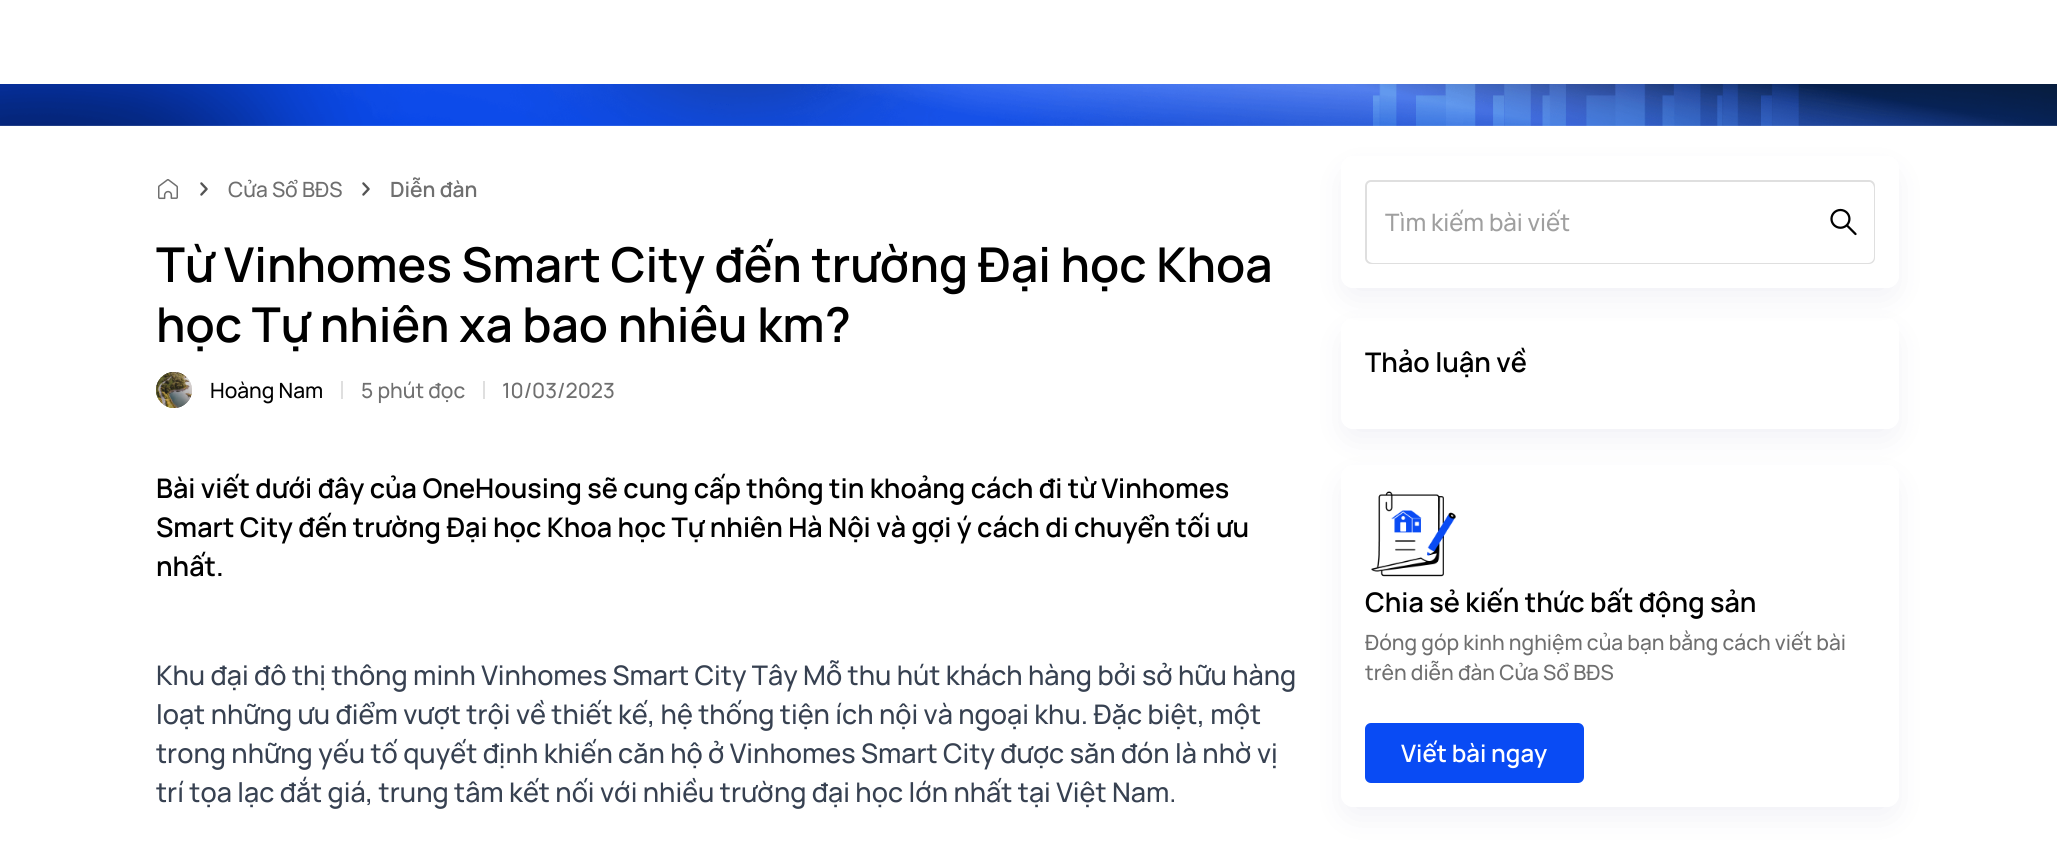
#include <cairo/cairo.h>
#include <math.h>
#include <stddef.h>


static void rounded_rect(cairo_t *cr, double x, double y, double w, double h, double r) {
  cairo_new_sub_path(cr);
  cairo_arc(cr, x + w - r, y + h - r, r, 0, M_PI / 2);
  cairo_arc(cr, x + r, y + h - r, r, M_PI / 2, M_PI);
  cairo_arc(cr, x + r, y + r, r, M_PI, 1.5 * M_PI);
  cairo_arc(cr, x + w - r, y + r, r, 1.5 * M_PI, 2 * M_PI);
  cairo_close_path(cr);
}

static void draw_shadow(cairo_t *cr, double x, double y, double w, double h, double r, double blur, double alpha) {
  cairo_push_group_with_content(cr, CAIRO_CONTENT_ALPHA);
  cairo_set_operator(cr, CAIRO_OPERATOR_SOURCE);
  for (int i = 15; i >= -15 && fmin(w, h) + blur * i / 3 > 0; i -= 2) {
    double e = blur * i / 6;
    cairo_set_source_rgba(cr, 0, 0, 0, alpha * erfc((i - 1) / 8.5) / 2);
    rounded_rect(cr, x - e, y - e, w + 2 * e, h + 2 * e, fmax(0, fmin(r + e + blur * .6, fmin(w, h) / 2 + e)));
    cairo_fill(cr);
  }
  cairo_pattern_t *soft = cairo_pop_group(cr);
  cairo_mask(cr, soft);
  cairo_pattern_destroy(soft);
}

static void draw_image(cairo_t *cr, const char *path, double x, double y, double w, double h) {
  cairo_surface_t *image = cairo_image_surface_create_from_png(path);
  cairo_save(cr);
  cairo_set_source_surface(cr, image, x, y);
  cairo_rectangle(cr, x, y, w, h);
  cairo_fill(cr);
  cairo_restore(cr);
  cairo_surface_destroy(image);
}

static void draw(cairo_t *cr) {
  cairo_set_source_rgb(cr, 1, 1, 1);
  cairo_paint(cr);
  cairo_save(cr);
  cairo_set_fill_rule(cr, CAIRO_FILL_RULE_EVEN_ODD);
  cairo_new_path(cr);
  cairo_move_to(cr, 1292, 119);
  cairo_line_to(cr, 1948, 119);
  cairo_line_to(cr, 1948, 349);
  cairo_line_to(cr, 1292, 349);
  cairo_close_path(cr);
  cairo_move_to(cr, 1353, 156);
  cairo_line_to(cr, 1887, 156);
  cairo_curve_to(cr, 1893.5, 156, 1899, 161.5, 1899, 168);
  cairo_line_to(cr, 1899, 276);
  cairo_curve_to(cr, 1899, 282.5, 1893.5, 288, 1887, 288);
  cairo_line_to(cr, 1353, 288);
  cairo_curve_to(cr, 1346.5, 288, 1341, 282.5, 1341, 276);
  cairo_line_to(cr, 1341, 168);
  cairo_curve_to(cr, 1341, 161.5, 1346.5, 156, 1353, 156);
  cairo_close_path(cr);
  cairo_clip(cr);
  cairo_set_source_rgb(cr, 0, 9 / 255.0, 87 / 255.0);
  draw_shadow(cr, 1347, 174, 546, 120, 6, 18, 0.07);
  cairo_restore(cr);
  draw_image(cr, "images/1.png", 0, 84, 2057, 42);
  draw_image(cr, "images/2.png", 158, 179, 20, 21);
  draw_image(cr, "images/3.png", 200, 182, 8, 14);
  draw_image(cr, "images/3.png", 362, 182, 8, 14);
  draw_image(cr, "images/4.png", 156, 372, 36, 36);
  draw_image(cr, "images/5.png", 156, 372, 36, 36);
  cairo_set_source_rgb(cr, 223 / 255.0, 223 / 255.0, 223 / 255.0);
  cairo_rectangle(cr, 341, 381, 2, 18);
  cairo_fill(cr);
  cairo_rectangle(cr, 483, 381, 2, 18);
  cairo_fill(cr);
  rounded_rect(cr, 1366, 181, 508, 82, 5);
  cairo_stroke(cr);
  cairo_set_source_rgb(cr, 1, 1, 1);
  rounded_rect(cr, 1367, 182, 507, 81, 6);
  cairo_fill(cr);
  draw_image(cr, "images/6.png", 1830, 208, 27, 28);
  cairo_save(cr);
  cairo_set_fill_rule(cr, CAIRO_FILL_RULE_EVEN_ODD);
  cairo_new_path(cr);
  cairo_move_to(cr, 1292, 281);
  cairo_line_to(cr, 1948, 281);
  cairo_line_to(cr, 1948, 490);
  cairo_line_to(cr, 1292, 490);
  cairo_close_path(cr);
  cairo_move_to(cr, 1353, 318);
  cairo_line_to(cr, 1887, 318);
  cairo_curve_to(cr, 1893.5, 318, 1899, 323.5, 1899, 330);
  cairo_line_to(cr, 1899, 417);
  cairo_curve_to(cr, 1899, 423.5, 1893.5, 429, 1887, 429);
  cairo_line_to(cr, 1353, 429);
  cairo_curve_to(cr, 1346.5, 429, 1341, 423.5, 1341, 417);
  cairo_line_to(cr, 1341, 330);
  cairo_curve_to(cr, 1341, 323.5, 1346.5, 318, 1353, 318);
  cairo_close_path(cr);
  cairo_clip(cr);
  cairo_set_source_rgb(cr, 0, 9 / 255.0, 87 / 255.0);
  draw_shadow(cr, 1347, 336, 546, 99, 6, 18, 0.07);
  cairo_restore(cr);
  cairo_save(cr);
  cairo_set_fill_rule(cr, CAIRO_FILL_RULE_EVEN_ODD);
  cairo_new_path(cr);
  cairo_move_to(cr, 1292, 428);
  cairo_line_to(cr, 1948, 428);
  cairo_line_to(cr, 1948, 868);
  cairo_line_to(cr, 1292, 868);
  cairo_close_path(cr);
  cairo_move_to(cr, 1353, 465);
  cairo_line_to(cr, 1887, 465);
  cairo_curve_to(cr, 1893.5, 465, 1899, 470.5, 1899, 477);
  cairo_line_to(cr, 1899, 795);
  cairo_curve_to(cr, 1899, 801.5, 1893.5, 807, 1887, 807);
  cairo_line_to(cr, 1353, 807);
  cairo_curve_to(cr, 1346.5, 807, 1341, 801.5, 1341, 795);
  cairo_line_to(cr, 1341, 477);
  cairo_curve_to(cr, 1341, 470.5, 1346.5, 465, 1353, 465);
  cairo_close_path(cr);
  cairo_clip(cr);
  cairo_set_source_rgb(cr, 0, 9 / 255.0, 87 / 255.0);
  draw_shadow(cr, 1347, 483, 546, 330, 6, 18, 0.07);
  cairo_restore(cr);
  draw_image(cr, "images/7.png", 1371, 491, 85, 86);
  cairo_set_source_rgb(cr, 9 / 255.0, 75 / 255.0, 244 / 255.0);
  rounded_rect(cr, 1365, 723, 219, 60, 6);
  cairo_fill(cr);
  cairo_select_font_face(cr, "Manrope Medium", CAIRO_FONT_SLANT_NORMAL, CAIRO_FONT_WEIGHT_NORMAL);
  cairo_set_font_size(cr, 21);
  cairo_set_source_rgb(cr, 111 / 255.0, 111 / 255.0, 111 / 255.0);
  cairo_move_to(cr, 228, 197);
  cairo_show_text(cr, "Cửa Sổ BĐS");
  cairo_select_font_face(cr, "Manrope SemiBold", CAIRO_FONT_SLANT_NORMAL, CAIRO_FONT_WEIGHT_NORMAL);
  cairo_move_to(cr, 390, 197);
  cairo_show_text(cr, "Diễn đàn");
  cairo_set_font_size(cr, 48);
  cairo_set_source_rgb(cr, 0, 0, 0);
  cairo_move_to(cr, 156, 282);
  cairo_show_text(cr, "Từ Vinhomes Smart City đến trường Đại học Khoa");
  cairo_move_to(cr, 156, 342);
  cairo_show_text(cr, "học Tự nhiên xa bao nhiêu km?");
  cairo_select_font_face(cr, "Manrope Medium", CAIRO_FONT_SLANT_NORMAL, CAIRO_FONT_WEIGHT_NORMAL);
  cairo_set_font_size(cr, 21);
  cairo_move_to(cr, 210, 398);
  cairo_show_text(cr, "Hoàng Nam");
  cairo_set_source_rgb(cr, 111 / 255.0, 111 / 255.0, 111 / 255.0);
  cairo_move_to(cr, 361, 398);
  cairo_show_text(cr, "5 phút đọc");
  cairo_move_to(cr, 502, 398);
  cairo_show_text(cr, "10/03/2023");
  cairo_select_font_face(cr, "Manrope SemiBold", CAIRO_FONT_SLANT_NORMAL, CAIRO_FONT_WEIGHT_NORMAL);
  cairo_set_font_size(cr, 27);
  cairo_set_source_rgb(cr, 0, 0, 0);
  cairo_move_to(cr, 156, 498);
  cairo_show_text(cr, "Bài viết dưới đây của OneHousing sẽ cung cấp thông tin khoảng cách đi từ Vinhomes");
  cairo_move_to(cr, 156, 537);
  cairo_show_text(cr, "Smart City đến trường Đại học Khoa học Tự nhiên Hà Nội và gợi ý cách di chuyển tối ưu");
  cairo_move_to(cr, 156, 576);
  cairo_show_text(cr, "nhất.");
  cairo_select_font_face(cr, "Manrope Medium", CAIRO_FONT_SLANT_NORMAL, CAIRO_FONT_WEIGHT_NORMAL);
  cairo_set_source_rgb(cr, 55 / 255.0, 65 / 255.0, 81 / 255.0);
  cairo_move_to(cr, 156, 685);
  cairo_show_text(cr, "Khu đại đô thị thông minh Vinhomes Smart City Tây Mỗ thu hút khách hàng bởi sở hữu hàng");
  cairo_move_to(cr, 156, 724);
  cairo_show_text(cr, "loạt những ưu điểm vượt trội về thiết kế, hệ thống tiện ích nội và ngoại khu. Đặc biệt, một");
  cairo_move_to(cr, 156, 763);
  cairo_show_text(cr, "trong những yếu tố quyết định khiến căn hộ ở Vinhomes Smart City được săn đón là nhờ vị");
  cairo_move_to(cr, 156, 802);
  cairo_show_text(cr, "trí tọa lạc đắt giá, trung tâm kết nối với nhiều trường đại học lớn nhất tại Việt Nam.");
  cairo_save(cr);
  cairo_rectangle(cr, 1385, 206, 471, 33);
  cairo_clip(cr);
  cairo_set_font_size(cr, 24);
  cairo_set_source_rgb(cr, 159 / 255.0, 159 / 255.0, 159 / 255.0);
  cairo_move_to(cr, 1385, 231);
  cairo_show_text(cr, "Tìm kiếm bài viết");
  cairo_restore(cr);
  cairo_select_font_face(cr, "Manrope SemiBold", CAIRO_FONT_SLANT_NORMAL, CAIRO_FONT_WEIGHT_NORMAL);
  cairo_set_source_rgb(cr, 0, 0, 0);
  cairo_move_to(cr, 1365, 372);
  cairo_show_text(cr, "Thảo luận về");
  cairo_move_to(cr, 1365, 612);
  cairo_show_text(cr, "Chia sẻ kiến thức bất động sản");
  cairo_select_font_face(cr, "Manrope Medium", CAIRO_FONT_SLANT_NORMAL, CAIRO_FONT_WEIGHT_NORMAL);
  cairo_set_font_size(cr, 21);
  cairo_set_source_rgb(cr, 111 / 255.0, 111 / 255.0, 111 / 255.0);
  cairo_move_to(cr, 1365, 650);
  cairo_show_text(cr, "Đóng góp kinh nghiệm của bạn bằng cách viết bài");
  cairo_move_to(cr, 1365, 680);
  cairo_show_text(cr, "trên diễn đàn Cửa Sổ BĐS");
  cairo_select_font_face(cr, "Manrope SemiBold", CAIRO_FONT_SLANT_NORMAL, CAIRO_FONT_WEIGHT_NORMAL);
  cairo_set_font_size(cr, 24);
  cairo_set_source_rgb(cr, 1, 1, 1);
  cairo_move_to(cr, 1401, 762);
  cairo_show_text(cr, "Viết bài ngay");
}

int main(void) {
  cairo_surface_t *surface = cairo_image_surface_create(CAIRO_FORMAT_RGB24, 2057, 868);
  cairo_t *cr = cairo_create(surface);
  cairo_font_options_t *options = cairo_font_options_create();
  cairo_font_options_set_hint_metrics(options, CAIRO_HINT_METRICS_OFF);
  cairo_font_options_set_hint_style(options, CAIRO_HINT_STYLE_NONE);
  cairo_set_font_options(cr, options);
  cairo_set_miter_limit(cr, 4);
  draw(cr);
  cairo_surface_write_to_png(surface, "out.png");
  cairo_font_options_destroy(options);
  cairo_destroy(cr);
  cairo_surface_destroy(surface);
  return 0;
}
